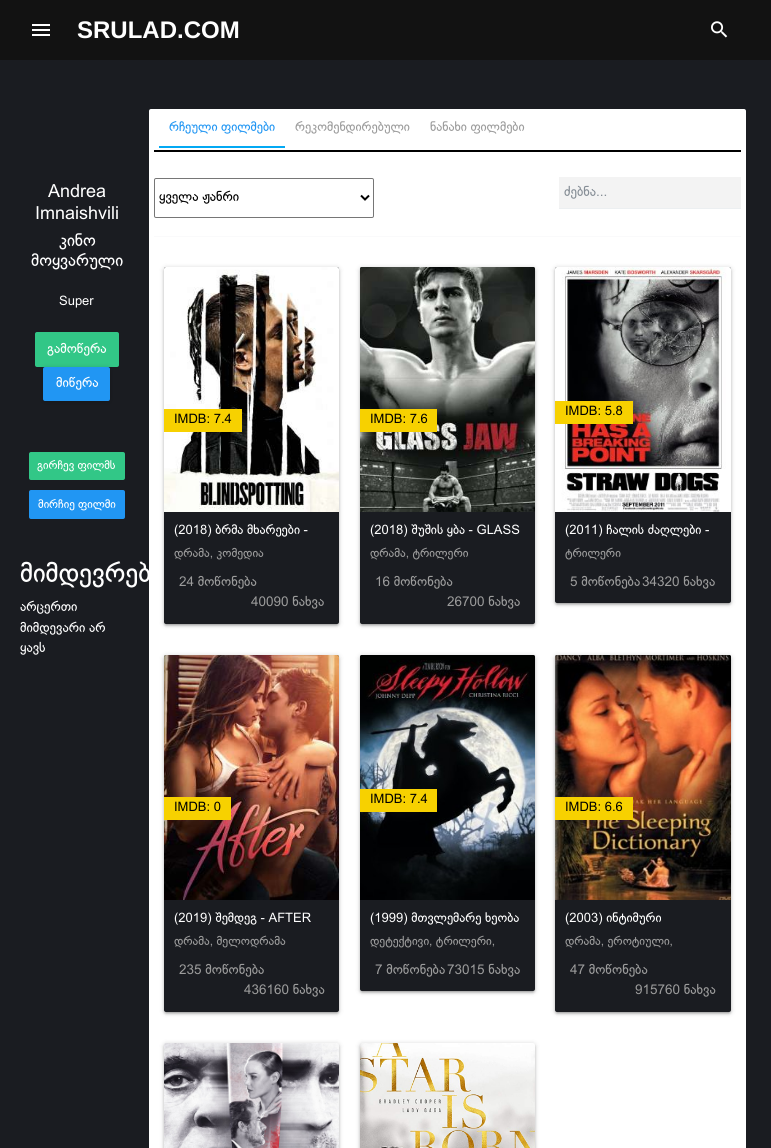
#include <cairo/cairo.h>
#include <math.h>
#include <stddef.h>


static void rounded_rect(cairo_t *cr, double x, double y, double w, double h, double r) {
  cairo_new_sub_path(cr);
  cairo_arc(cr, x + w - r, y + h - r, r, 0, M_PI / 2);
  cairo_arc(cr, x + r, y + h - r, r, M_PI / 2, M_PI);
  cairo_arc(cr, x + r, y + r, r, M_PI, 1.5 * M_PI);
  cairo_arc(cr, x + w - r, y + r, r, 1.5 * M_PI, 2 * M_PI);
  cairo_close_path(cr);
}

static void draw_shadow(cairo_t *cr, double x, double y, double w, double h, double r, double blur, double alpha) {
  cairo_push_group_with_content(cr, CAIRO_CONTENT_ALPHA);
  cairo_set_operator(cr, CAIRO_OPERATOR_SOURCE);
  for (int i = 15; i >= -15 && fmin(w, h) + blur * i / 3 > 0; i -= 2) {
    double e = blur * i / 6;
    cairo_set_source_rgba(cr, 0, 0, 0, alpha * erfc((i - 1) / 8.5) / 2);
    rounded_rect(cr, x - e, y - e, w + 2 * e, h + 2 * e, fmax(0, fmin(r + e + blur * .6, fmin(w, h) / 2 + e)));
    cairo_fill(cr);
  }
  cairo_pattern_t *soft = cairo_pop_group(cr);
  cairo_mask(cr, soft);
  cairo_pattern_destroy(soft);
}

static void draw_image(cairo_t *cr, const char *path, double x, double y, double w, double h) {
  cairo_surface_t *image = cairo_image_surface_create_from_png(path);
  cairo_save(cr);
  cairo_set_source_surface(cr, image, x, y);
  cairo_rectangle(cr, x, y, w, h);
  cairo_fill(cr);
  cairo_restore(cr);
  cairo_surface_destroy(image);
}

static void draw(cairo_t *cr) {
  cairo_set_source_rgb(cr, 26 / 255.0, 28 / 255.0, 33 / 255.0);
  cairo_paint(cr);
  cairo_set_source_rgb(cr, 18 / 255.0, 18 / 255.0, 18 / 255.0);
  cairo_rectangle(cr, 0, 0, 771, 60);
  cairo_fill(cr);
  cairo_set_source_rgb(cr, 1, 1, 1);
  cairo_rectangle(cr, 32, 24, 18, 2);
  cairo_fill(cr);
  cairo_rectangle(cr, 32, 29, 18, 2);
  cairo_fill(cr);
  cairo_rectangle(cr, 32, 34, 18, 2);
  cairo_fill(cr);
  draw_image(cr, "images/1.png", 711, 21, 17, 17);
  cairo_set_source_rgb(cr, 50 / 255.0, 199 / 255.0, 135 / 255.0);
  rounded_rect(cr, 35, 332, 84, 35, 2);
  cairo_fill(cr);
  cairo_set_source_rgb(cr, 0, 0, 0);
  draw_shadow(cr, 43, 368, 67, 34, 2, 2.5, 0.2);
  cairo_set_source_rgb(cr, 33 / 255.0, 150 / 255.0, 243 / 255.0);
  rounded_rect(cr, 43, 367, 67, 34, 2);
  cairo_fill(cr);
  cairo_set_source_rgb(cr, 50 / 255.0, 199 / 255.0, 135 / 255.0);
  rounded_rect(cr, 29, 452, 96, 28, 2);
  cairo_fill(cr);
  cairo_set_source_rgb(cr, 33 / 255.0, 150 / 255.0, 243 / 255.0);
  rounded_rect(cr, 29, 490, 96, 29, 2);
  cairo_fill(cr);
  cairo_set_source_rgb(cr, 1, 1, 1);
  rounded_rect(cr, 149, 109, 597, 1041, 2);
  cairo_fill(cr);
  cairo_set_source_rgb(cr, 0, 0, 0);
  cairo_rectangle(cr, 154, 150, 587, 2);
  cairo_fill(cr);
  cairo_set_source_rgb(cr, 3 / 255.0, 169 / 255.0, 244 / 255.0);
  cairo_rectangle(cr, 159, 146, 126, 2);
  cairo_fill(cr);
  rounded_rect(cr, 154.5, 178.5, 219, 39, 1.5);
  cairo_set_source_rgb(cr, 118 / 255.0, 118 / 255.0, 118 / 255.0);
  cairo_set_line_width(cr, 1);
  cairo_stroke(cr);
  cairo_new_path(cr);
  cairo_move_to(cr, 361, 195.5);
  cairo_line_to(cr, 365, 199.5);
  cairo_line_to(cr, 369, 195.5);
  cairo_set_source_rgb(cr, 0, 0, 0);
  cairo_set_line_width(cr, 2);
  cairo_stroke(cr);
  cairo_set_source_rgb(cr, 243 / 255.0, 243 / 255.0, 243 / 255.0);
  cairo_rectangle(cr, 559, 177, 182, 31);
  cairo_fill(cr);
  cairo_set_source_rgb(cr, 236 / 255.0, 239 / 255.0, 241 / 255.0);
  cairo_rectangle(cr, 559, 208, 182, 1);
  cairo_fill(cr);
  cairo_set_source_rgb(cr, 250 / 255.0, 250 / 255.0, 251 / 255.0);
  cairo_rectangle(cr, 154, 236, 587, 1);
  cairo_fill(cr);
  cairo_set_source_rgb(cr, 0, 0, 0);
  draw_shadow(cr, 164, 268, 175, 357, 2, 2.5, 0.2);
  draw_shadow(cr, 166, 272, 171, 353, 0, 0.5, 0.12);
  draw_shadow(cr, 164, 269, 175, 357, 2, 1, 0.14);
  cairo_set_source_rgb(cr, 26 / 255.0, 28 / 255.0, 33 / 255.0);
  rounded_rect(cr, 164, 267, 175, 357, 2);
  cairo_fill(cr);
  draw_image(cr, "images/2.png", 164, 267, 175, 245);
  cairo_set_source_rgb(cr, 247 / 255.0, 209 / 255.0, 0);
  cairo_rectangle(cr, 164, 409, 78, 23);
  cairo_fill(cr);
  cairo_set_source_rgb(cr, 0, 0, 0);
  draw_shadow(cr, 360, 268, 175, 357, 2, 2.5, 0.2);
  draw_shadow(cr, 362, 272, 171, 353, 0, 0.5, 0.12);
  draw_shadow(cr, 360, 269, 175, 357, 2, 1, 0.14);
  cairo_set_source_rgb(cr, 26 / 255.0, 28 / 255.0, 33 / 255.0);
  rounded_rect(cr, 360, 267, 175, 357, 2);
  cairo_fill(cr);
  draw_image(cr, "images/3.png", 360, 267, 175, 245);
  cairo_set_source_rgb(cr, 247 / 255.0, 209 / 255.0, 0);
  cairo_rectangle(cr, 360, 409, 77, 23);
  cairo_fill(cr);
  cairo_set_source_rgb(cr, 0, 0, 0);
  draw_shadow(cr, 555, 268, 176, 336, 2, 2.5, 0.2);
  draw_shadow(cr, 557, 272, 172, 332, 0, 0.5, 0.12);
  draw_shadow(cr, 555, 269, 176, 336, 2, 1, 0.14);
  cairo_set_source_rgb(cr, 26 / 255.0, 28 / 255.0, 33 / 255.0);
  rounded_rect(cr, 555, 267, 176, 336, 2);
  cairo_fill(cr);
  draw_image(cr, "images/4.png", 555, 267, 176, 245);
  cairo_set_source_rgb(cr, 247 / 255.0, 209 / 255.0, 0);
  cairo_rectangle(cr, 555, 401, 78, 23);
  cairo_fill(cr);
  cairo_set_source_rgb(cr, 0, 0, 0);
  draw_shadow(cr, 164, 656, 175, 357, 2, 2.5, 0.2);
  draw_shadow(cr, 166, 660, 171, 353, 0, 0.5, 0.12);
  draw_shadow(cr, 164, 657, 175, 357, 2, 1, 0.14);
  cairo_set_source_rgb(cr, 26 / 255.0, 28 / 255.0, 33 / 255.0);
  rounded_rect(cr, 164, 655, 175, 357, 2);
  cairo_fill(cr);
  draw_image(cr, "images/5.png", 164, 655, 175, 245);
  cairo_set_source_rgb(cr, 247 / 255.0, 209 / 255.0, 0);
  cairo_rectangle(cr, 164, 797, 67, 23);
  cairo_fill(cr);
  cairo_set_source_rgb(cr, 0, 0, 0);
  draw_shadow(cr, 360, 656, 175, 336, 2, 2.5, 0.2);
  draw_shadow(cr, 362, 660, 171, 332, 0, 0.5, 0.12);
  draw_shadow(cr, 360, 657, 175, 336, 2, 1, 0.14);
  cairo_set_source_rgb(cr, 26 / 255.0, 28 / 255.0, 33 / 255.0);
  rounded_rect(cr, 360, 655, 175, 336, 2);
  cairo_fill(cr);
  draw_image(cr, "images/6.png", 360, 655, 175, 245);
  cairo_set_source_rgb(cr, 247 / 255.0, 209 / 255.0, 0);
  cairo_rectangle(cr, 360, 789, 77, 23);
  cairo_fill(cr);
  cairo_set_source_rgb(cr, 0, 0, 0);
  draw_shadow(cr, 555, 656, 176, 357, 2, 2.5, 0.2);
  draw_shadow(cr, 557, 660, 172, 353, 0, 0.5, 0.12);
  draw_shadow(cr, 555, 657, 176, 357, 2, 1, 0.14);
  cairo_set_source_rgb(cr, 26 / 255.0, 28 / 255.0, 33 / 255.0);
  rounded_rect(cr, 555, 655, 176, 357, 2);
  cairo_fill(cr);
  draw_image(cr, "images/7.png", 555, 655, 176, 245);
  cairo_set_source_rgb(cr, 247 / 255.0, 209 / 255.0, 0);
  cairo_rectangle(cr, 555, 797, 78, 23);
  cairo_fill(cr);
  cairo_set_source_rgb(cr, 0, 0, 0);
  draw_shadow(cr, 164, 1044, 175, 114, 2, 2.5, 0.2);
  draw_shadow(cr, 164, 1045, 175, 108, 2, 1, 0.14);
  draw_image(cr, "images/8.png", 164, 1043, 175, 105);
  draw_shadow(cr, 360, 1044, 175, 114, 2, 2.5, 0.2);
  draw_shadow(cr, 360, 1045, 175, 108, 2, 1, 0.14);
  draw_image(cr, "images/9.png", 360, 1043, 175, 105);
  cairo_select_font_face(cr, "Liberation Sans", CAIRO_FONT_SLANT_NORMAL, CAIRO_FONT_WEIGHT_BOLD);
  cairo_set_font_size(cr, 24);
  cairo_set_source_rgb(cr, 1, 1, 1);
  cairo_move_to(cr, 77, 38);
  cairo_show_text(cr, "SRULAD.COM");
  cairo_select_font_face(cr, "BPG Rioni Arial", CAIRO_FONT_SLANT_NORMAL, CAIRO_FONT_WEIGHT_NORMAL);
  cairo_set_font_size(cr, 18);
  cairo_move_to(cr, 48, 197);
  cairo_show_text(cr, "Andrea");
  cairo_move_to(cr, 35, 219);
  cairo_show_text(cr, "Imnaishvili");
  cairo_set_font_size(cr, 17);
  cairo_move_to(cr, 59, 246);
  cairo_show_text(cr, "კინო");
  cairo_move_to(cr, 31, 266);
  cairo_show_text(cr, "მოყვარული");
  cairo_set_font_size(cr, 13);
  cairo_move_to(cr, 59, 305);
  cairo_show_text(cr, "Super");
  cairo_set_font_size(cr, 13.5);
  cairo_move_to(cr, 47, 353);
  cairo_show_text(cr, "გამოწერა");
  cairo_move_to(cr, 56, 387);
  cairo_show_text(cr, "მიწერა");
  cairo_set_font_size(cr, 11.75);
  cairo_move_to(cr, 37, 469);
  cairo_show_text(cr, "გირჩევ ფილმს");
  cairo_move_to(cr, 38, 508);
  cairo_show_text(cr, "მირჩიე ფილმი");
  cairo_set_font_size(cr, 27);
  cairo_move_to(cr, 20, 582);
  cairo_show_text(cr, "მიმდევრებ");
  cairo_set_font_size(cr, 13.5);
  cairo_move_to(cr, 20, 611);
  cairo_show_text(cr, "არცერთი");
  cairo_move_to(cr, 20, 632);
  cairo_show_text(cr, "მიმდევარი არ");
  cairo_move_to(cr, 20, 652);
  cairo_show_text(cr, "ყავს");
  cairo_set_font_size(cr, 13);
  cairo_set_source_rgb(cr, 33 / 255.0, 150 / 255.0, 243 / 255.0);
  cairo_move_to(cr, 169, 131);
  cairo_show_text(cr, "რჩეული ფილმები");
  cairo_set_source_rgb(cr, 156 / 255.0, 156 / 255.0, 156 / 255.0);
  cairo_move_to(cr, 295, 131);
  cairo_show_text(cr, "რეკომენდირებული");
  cairo_move_to(cr, 430, 131);
  cairo_show_text(cr, "ნანახი ფილმები");
  cairo_set_font_size(cr, 13.5);
  cairo_set_source_rgb(cr, 0, 0, 0);
  cairo_move_to(cr, 159, 201);
  cairo_show_text(cr, "ყველა ჟანრი");
  cairo_set_source_rgb(cr, 134 / 255.0, 142 / 255.0, 150 / 255.0);
  cairo_move_to(cr, 564, 196);
  cairo_show_text(cr, "ძებნა...");
  cairo_set_font_size(cr, 13);
  cairo_set_source_rgb(cr, 0, 0, 0);
  cairo_move_to(cr, 174, 423);
  cairo_show_text(cr, "IMDB: 7.4");
  cairo_set_source_rgb(cr, 1, 1, 1);
  cairo_move_to(cr, 174, 534);
  cairo_show_text(cr, "(2018) ბრმა მხარეები -");
  cairo_set_font_size(cr, 12.2);
  cairo_set_source_rgb(cr, 156 / 255.0, 156 / 255.0, 156 / 255.0);
  cairo_move_to(cr, 174, 557);
  cairo_show_text(cr, "დრამა, კომედია");
  cairo_set_font_size(cr, 13.5);
  cairo_move_to(cr, 179, 586);
  cairo_show_text(cr, "24 მოწონება");
  cairo_move_to(cr, 251, 606);
  cairo_show_text(cr, "40090 ნახვა");
  cairo_set_font_size(cr, 13);
  cairo_set_source_rgb(cr, 0, 0, 0);
  cairo_move_to(cr, 370, 423);
  cairo_show_text(cr, "IMDB: 7.6");
  cairo_set_source_rgb(cr, 1, 1, 1);
  cairo_move_to(cr, 370, 534);
  cairo_show_text(cr, "(2018) შუშის ყბა - GLASS");
  cairo_set_font_size(cr, 12.2);
  cairo_set_source_rgb(cr, 156 / 255.0, 156 / 255.0, 156 / 255.0);
  cairo_move_to(cr, 370, 557);
  cairo_show_text(cr, "დრამა, ტრილერი");
  cairo_set_font_size(cr, 13.5);
  cairo_move_to(cr, 375, 586);
  cairo_show_text(cr, "16 მოწონება");
  cairo_move_to(cr, 447, 606);
  cairo_show_text(cr, "26700 ნახვა");
  cairo_set_font_size(cr, 13);
  cairo_set_source_rgb(cr, 0, 0, 0);
  cairo_move_to(cr, 565, 415);
  cairo_show_text(cr, "IMDB: 5.8");
  cairo_set_source_rgb(cr, 1, 1, 1);
  cairo_move_to(cr, 565, 534);
  cairo_show_text(cr, "(2011) ჩალის ძაღლები -");
  cairo_set_font_size(cr, 12.2);
  cairo_set_source_rgb(cr, 156 / 255.0, 156 / 255.0, 156 / 255.0);
  cairo_move_to(cr, 565, 557);
  cairo_show_text(cr, "ტრილერი");
  cairo_set_font_size(cr, 13.5);
  cairo_move_to(cr, 570, 586);
  cairo_show_text(cr, "5 მოწონება");
  cairo_move_to(cr, 642, 586);
  cairo_show_text(cr, "34320 ნახვა");
  cairo_set_font_size(cr, 13);
  cairo_set_source_rgb(cr, 0, 0, 0);
  cairo_move_to(cr, 174, 811);
  cairo_show_text(cr, "IMDB: 0");
  cairo_set_source_rgb(cr, 1, 1, 1);
  cairo_move_to(cr, 174, 922);
  cairo_show_text(cr, "(2019) შემდეგ - AFTER");
  cairo_set_font_size(cr, 12.2);
  cairo_set_source_rgb(cr, 156 / 255.0, 156 / 255.0, 156 / 255.0);
  cairo_move_to(cr, 174, 945);
  cairo_show_text(cr, "დრამა, მელოდრამა");
  cairo_set_font_size(cr, 13.5);
  cairo_move_to(cr, 179, 974);
  cairo_show_text(cr, "235 მოწონება");
  cairo_move_to(cr, 244, 994);
  cairo_show_text(cr, "436160 ნახვა");
  cairo_set_font_size(cr, 13);
  cairo_set_source_rgb(cr, 0, 0, 0);
  cairo_move_to(cr, 370, 803);
  cairo_show_text(cr, "IMDB: 7.4");
  cairo_set_source_rgb(cr, 1, 1, 1);
  cairo_move_to(cr, 370, 922);
  cairo_show_text(cr, "(1999) მთვლემარე ხეობა");
  cairo_set_font_size(cr, 12.2);
  cairo_set_source_rgb(cr, 156 / 255.0, 156 / 255.0, 156 / 255.0);
  cairo_move_to(cr, 370, 945);
  cairo_show_text(cr, "დეტექტივი, ტრილერი,");
  cairo_set_font_size(cr, 13.5);
  cairo_move_to(cr, 375, 974);
  cairo_show_text(cr, "7 მოწონება");
  cairo_move_to(cr, 447, 974);
  cairo_show_text(cr, "73015 ნახვა");
  cairo_set_font_size(cr, 13);
  cairo_set_source_rgb(cr, 0, 0, 0);
  cairo_move_to(cr, 565, 811);
  cairo_show_text(cr, "IMDB: 6.6");
  cairo_set_source_rgb(cr, 1, 1, 1);
  cairo_move_to(cr, 565, 922);
  cairo_show_text(cr, "(2003) ინტიმური");
  cairo_set_font_size(cr, 12.2);
  cairo_set_source_rgb(cr, 156 / 255.0, 156 / 255.0, 156 / 255.0);
  cairo_move_to(cr, 565, 945);
  cairo_show_text(cr, "დრამა, ეროტიული,");
  cairo_set_font_size(cr, 13.5);
  cairo_move_to(cr, 570, 974);
  cairo_show_text(cr, "47 მოწონება");
  cairo_move_to(cr, 635, 994);
  cairo_show_text(cr, "915760 ნახვა");
}

int main(void) {
  cairo_surface_t *surface = cairo_image_surface_create(CAIRO_FORMAT_RGB24, 771, 1148);
  cairo_t *cr = cairo_create(surface);
  cairo_font_options_t *options = cairo_font_options_create();
  cairo_font_options_set_hint_metrics(options, CAIRO_HINT_METRICS_OFF);
  cairo_font_options_set_hint_style(options, CAIRO_HINT_STYLE_NONE);
  cairo_set_font_options(cr, options);
  cairo_set_miter_limit(cr, 4);
  draw(cr);
  cairo_surface_write_to_png(surface, "out.png");
  cairo_font_options_destroy(options);
  cairo_destroy(cr);
  cairo_surface_destroy(surface);
  return 0;
}
